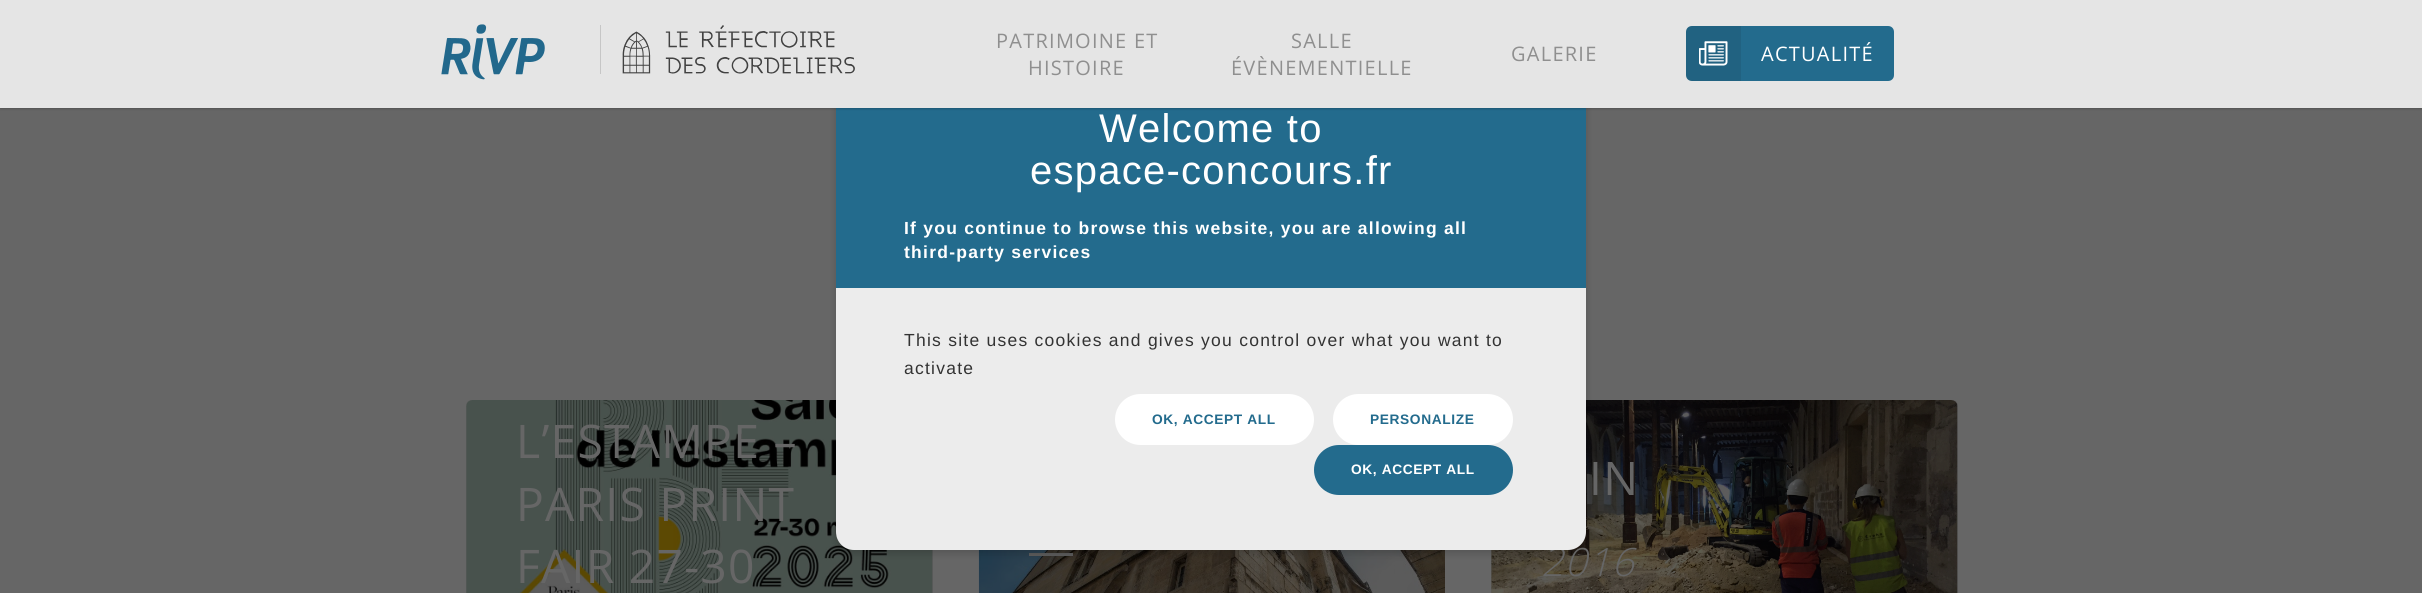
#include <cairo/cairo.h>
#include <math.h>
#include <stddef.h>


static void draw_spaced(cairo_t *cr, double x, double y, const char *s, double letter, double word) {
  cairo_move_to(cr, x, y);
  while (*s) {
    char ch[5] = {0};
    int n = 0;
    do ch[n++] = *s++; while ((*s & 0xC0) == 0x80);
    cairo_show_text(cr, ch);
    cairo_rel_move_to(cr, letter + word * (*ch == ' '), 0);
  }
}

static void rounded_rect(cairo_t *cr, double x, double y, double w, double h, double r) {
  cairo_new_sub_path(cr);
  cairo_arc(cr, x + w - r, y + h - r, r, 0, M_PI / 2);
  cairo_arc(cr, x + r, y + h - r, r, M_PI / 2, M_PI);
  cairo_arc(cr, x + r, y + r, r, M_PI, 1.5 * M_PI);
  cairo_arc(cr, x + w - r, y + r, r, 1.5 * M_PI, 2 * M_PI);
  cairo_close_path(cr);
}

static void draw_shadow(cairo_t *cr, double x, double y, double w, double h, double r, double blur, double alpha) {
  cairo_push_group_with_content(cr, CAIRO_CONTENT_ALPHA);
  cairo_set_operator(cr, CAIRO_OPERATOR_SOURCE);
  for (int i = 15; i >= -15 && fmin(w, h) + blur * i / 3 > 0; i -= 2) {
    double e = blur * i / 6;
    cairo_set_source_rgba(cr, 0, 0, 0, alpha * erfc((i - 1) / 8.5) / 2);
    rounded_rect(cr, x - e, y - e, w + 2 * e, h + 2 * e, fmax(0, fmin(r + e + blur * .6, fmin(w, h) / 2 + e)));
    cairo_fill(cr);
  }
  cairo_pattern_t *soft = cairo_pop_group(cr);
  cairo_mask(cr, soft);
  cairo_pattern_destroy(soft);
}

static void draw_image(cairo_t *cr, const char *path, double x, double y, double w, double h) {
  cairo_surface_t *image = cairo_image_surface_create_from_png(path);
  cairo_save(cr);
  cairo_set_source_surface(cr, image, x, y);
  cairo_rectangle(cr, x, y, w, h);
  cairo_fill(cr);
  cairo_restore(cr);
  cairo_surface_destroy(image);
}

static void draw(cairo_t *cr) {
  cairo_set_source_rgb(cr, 102 / 255.0, 102 / 255.0, 102 / 255.0);
  cairo_paint(cr);
  draw_image(cr, "images/4.png", 466, 400, 467, 193);
  cairo_set_source_rgba(cr, 0, 0, 0, 0.1);
  cairo_new_path(cr);
  cairo_move_to(cr, 472, 400);
  cairo_line_to(cr, 927, 400);
  cairo_curve_to(cr, 930.5, 400, 933, 402.5, 933, 406);
  cairo_line_to(cr, 933, 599);
  cairo_line_to(cr, 466, 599);
  cairo_line_to(cr, 466, 406);
  cairo_curve_to(cr, 466, 402.5, 468.5, 400, 472, 400);
  cairo_close_path(cr);
  cairo_fill(cr);
  draw_image(cr, "images/5.png", 978, 550, 467, 43);
  cairo_set_source_rgb(cr, 102 / 255.0, 102 / 255.0, 102 / 255.0);
  cairo_rectangle(cr, 1029, 553, 44, 3);
  cairo_fill(cr);
  cairo_set_source_rgba(cr, 0, 0, 0, 0.1);
  cairo_rectangle(cr, 979, 550, 466, 43);
  cairo_fill(cr);
  draw_image(cr, "images/6.png", 1491, 400, 467, 193);
  cairo_new_path(cr);
  cairo_move_to(cr, 1497, 400);
  cairo_line_to(cr, 1952, 400);
  cairo_curve_to(cr, 1955.5, 400, 1958, 402.5, 1958, 406);
  cairo_line_to(cr, 1958, 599);
  cairo_line_to(cr, 1491, 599);
  cairo_line_to(cr, 1491, 406);
  cairo_curve_to(cr, 1491, 402.5, 1493.5, 400, 1497, 400);
  cairo_close_path(cr);
  cairo_fill(cr);
  cairo_set_source_rgb(cr, 0, 0, 0);
  draw_shadow(cr, 836, 49, 750, 505, 18, 4, 0.16);
  cairo_select_font_face(cr, "Open Sans", CAIRO_FONT_SLANT_NORMAL, CAIRO_FONT_WEIGHT_NORMAL);
  cairo_set_font_size(cr, 46.25);
  cairo_set_source_rgb(cr, 102 / 255.0, 102 / 255.0, 102 / 255.0);
  draw_spaced(cr, 516, 458, "L’ESTAMPE –", 1.25, 0);
  draw_spaced(cr, 516, 521, "PARIS PRINT", 1.25, 0);
  draw_spaced(cr, 516, 583, "FAIR 27-30", 1.25, 0);
  draw_spaced(cr, 1589, 495, "IN", 1.25, 0);
  cairo_select_font_face(cr, "Open Sans Light", CAIRO_FONT_SLANT_ITALIC, CAIRO_FONT_WEIGHT_NORMAL);
  cairo_set_font_size(cr, 39);
  draw_spaced(cr, 1541, 576, "2016", 1.25, 0);
  cairo_set_source_rgb(cr, 236 / 255.0, 236 / 255.0, 236 / 255.0);
  rounded_rect(cr, 836, 45, 750, 505, 18);
  cairo_fill(cr);
  cairo_set_source_rgb(cr, 35 / 255.0, 107 / 255.0, 141 / 255.0);
  cairo_rectangle(cr, 836, 108, 750, 180);
  cairo_fill(cr);
  cairo_set_source_rgb(cr, 0, 0, 0);
  draw_shadow(cr, 0, 1, 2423, 108, 0, 1, 0.2);
  cairo_set_source_rgb(cr, 229 / 255.0, 229 / 255.0, 229 / 255.0);
  cairo_rectangle(cr, 0, 0, 2422, 108);
  cairo_fill(cr);
  cairo_set_source_rgb(cr, 33 / 255.0, 98 / 255.0, 129 / 255.0);
  cairo_new_path(cr);
  cairo_move_to(cr, 1692, 26);
  cairo_line_to(cr, 1741, 26);
  cairo_line_to(cr, 1741, 81);
  cairo_line_to(cr, 1692, 81);
  cairo_curve_to(cr, 1688.5, 81, 1686, 78.5, 1686, 75);
  cairo_line_to(cr, 1686, 32);
  cairo_curve_to(cr, 1686, 28.5, 1688.5, 26, 1692, 26);
  cairo_close_path(cr);
  cairo_fill(cr);
  draw_image(cr, "images/3.png", 1699, 41, 29, 25);
  cairo_set_source_rgb(cr, 35 / 255.0, 107 / 255.0, 141 / 255.0);
  cairo_new_path(cr);
  cairo_move_to(cr, 1741, 26);
  cairo_line_to(cr, 1888, 26);
  cairo_curve_to(cr, 1891.5, 26, 1894, 28.5, 1894, 32);
  cairo_line_to(cr, 1894, 75);
  cairo_curve_to(cr, 1894, 78.5, 1891.5, 81, 1888, 81);
  cairo_line_to(cr, 1741, 81);
  cairo_close_path(cr);
  cairo_fill(cr);
  cairo_select_font_face(cr, "Open Sans", CAIRO_FONT_SLANT_NORMAL, CAIRO_FONT_WEIGHT_NORMAL);
  cairo_set_font_size(cr, 20);
  cairo_set_source_rgb(cr, 1, 1, 1);
  draw_spaced(cr, 1761, 61, "ACTUALITÉ", 1.25, 0);
  cairo_set_source_rgb(cr, 143 / 255.0, 143 / 255.0, 143 / 255.0);
  draw_spaced(cr, 1511, 61, "GALERIE", 1.25, 0);
  draw_spaced(cr, 1231, 75, "ÉVÈNEMENTIELLE", 1.25, 0);
  draw_spaced(cr, 1291, 48, "SALLE", 1.25, 0);
  draw_spaced(cr, 1028, 75, "HISTOIRE", 1.25, 0);
  draw_spaced(cr, 996, 48, "PATRIMOINE ET", 1.25, 0);
  draw_image(cr, "images/1.png", 441, 24, 104, 56);
  draw_image(cr, "images/2.png", 622, 25, 233, 49);
  cairo_set_source_rgb(cr, 198 / 255.0, 198 / 255.0, 198 / 255.0);
  cairo_rectangle(cr, 600, 25, 1, 49);
  cairo_fill(cr);
  cairo_set_source_rgb(cr, 35 / 255.0, 107 / 255.0, 141 / 255.0);
  rounded_rect(cr, 1314, 445, 199, 50, 25);
  cairo_fill(cr);
  cairo_select_font_face(cr, "Liberation Sans", CAIRO_FONT_SLANT_NORMAL, CAIRO_FONT_WEIGHT_BOLD);
  cairo_set_font_size(cr, 13.75);
  cairo_set_source_rgb(cr, 1, 1, 1);
  draw_spaced(cr, 1351, 474, "OK, ACCEPT ALL", 0.6, 0);
  rounded_rect(cr, 1333, 394, 180, 51, 25.5);
  cairo_fill(cr);
  cairo_set_source_rgb(cr, 35 / 255.0, 107 / 255.0, 141 / 255.0);
  draw_spaced(cr, 1370, 424, "PERSONALIZE", 0.6, 0);
  cairo_set_source_rgb(cr, 1, 1, 1);
  rounded_rect(cr, 1115, 394, 199, 51, 25.5);
  cairo_fill(cr);
  cairo_set_source_rgb(cr, 35 / 255.0, 107 / 255.0, 141 / 255.0);
  draw_spaced(cr, 1152, 424, "OK, ACCEPT ALL", 0.6, 0);
  cairo_select_font_face(cr, "Liberation Sans", CAIRO_FONT_SLANT_NORMAL, CAIRO_FONT_WEIGHT_NORMAL);
  cairo_set_font_size(cr, 17.5);
  cairo_set_source_rgb(cr, 51 / 255.0, 51 / 255.0, 51 / 255.0);
  draw_spaced(cr, 904, 374, "activate", 1.25, 0);
  draw_spaced(cr, 904, 346, "This site uses cookies and gives you control over what you want to", 1.25, 0);
  cairo_select_font_face(cr, "Liberation Sans", CAIRO_FONT_SLANT_NORMAL, CAIRO_FONT_WEIGHT_BOLD);
  cairo_set_source_rgb(cr, 1, 1, 1);
  draw_spaced(cr, 904, 258, "third-party services", 1.25, 0);
  draw_spaced(cr, 904, 234, "If you continue to browse this website, you are allowing all", 1.25, 0);
  cairo_select_font_face(cr, "Liberation Sans", CAIRO_FONT_SLANT_NORMAL, CAIRO_FONT_WEIGHT_NORMAL);
  cairo_set_font_size(cr, 40);
  draw_spaced(cr, 1030, 184, "espace-concours.fr", 1.25, 0);
  draw_spaced(cr, 1099, 142, "Welcome to", 1.25, 0);
}

int main(void) {
  cairo_surface_t *surface = cairo_image_surface_create(CAIRO_FORMAT_RGB24, 2422, 593);
  cairo_t *cr = cairo_create(surface);
  cairo_font_options_t *options = cairo_font_options_create();
  cairo_font_options_set_hint_metrics(options, CAIRO_HINT_METRICS_OFF);
  cairo_font_options_set_hint_style(options, CAIRO_HINT_STYLE_NONE);
  cairo_set_font_options(cr, options);
  cairo_set_miter_limit(cr, 4);
  draw(cr);
  cairo_surface_write_to_png(surface, "out.png");
  cairo_font_options_destroy(options);
  cairo_destroy(cr);
  cairo_surface_destroy(surface);
  return 0;
}
